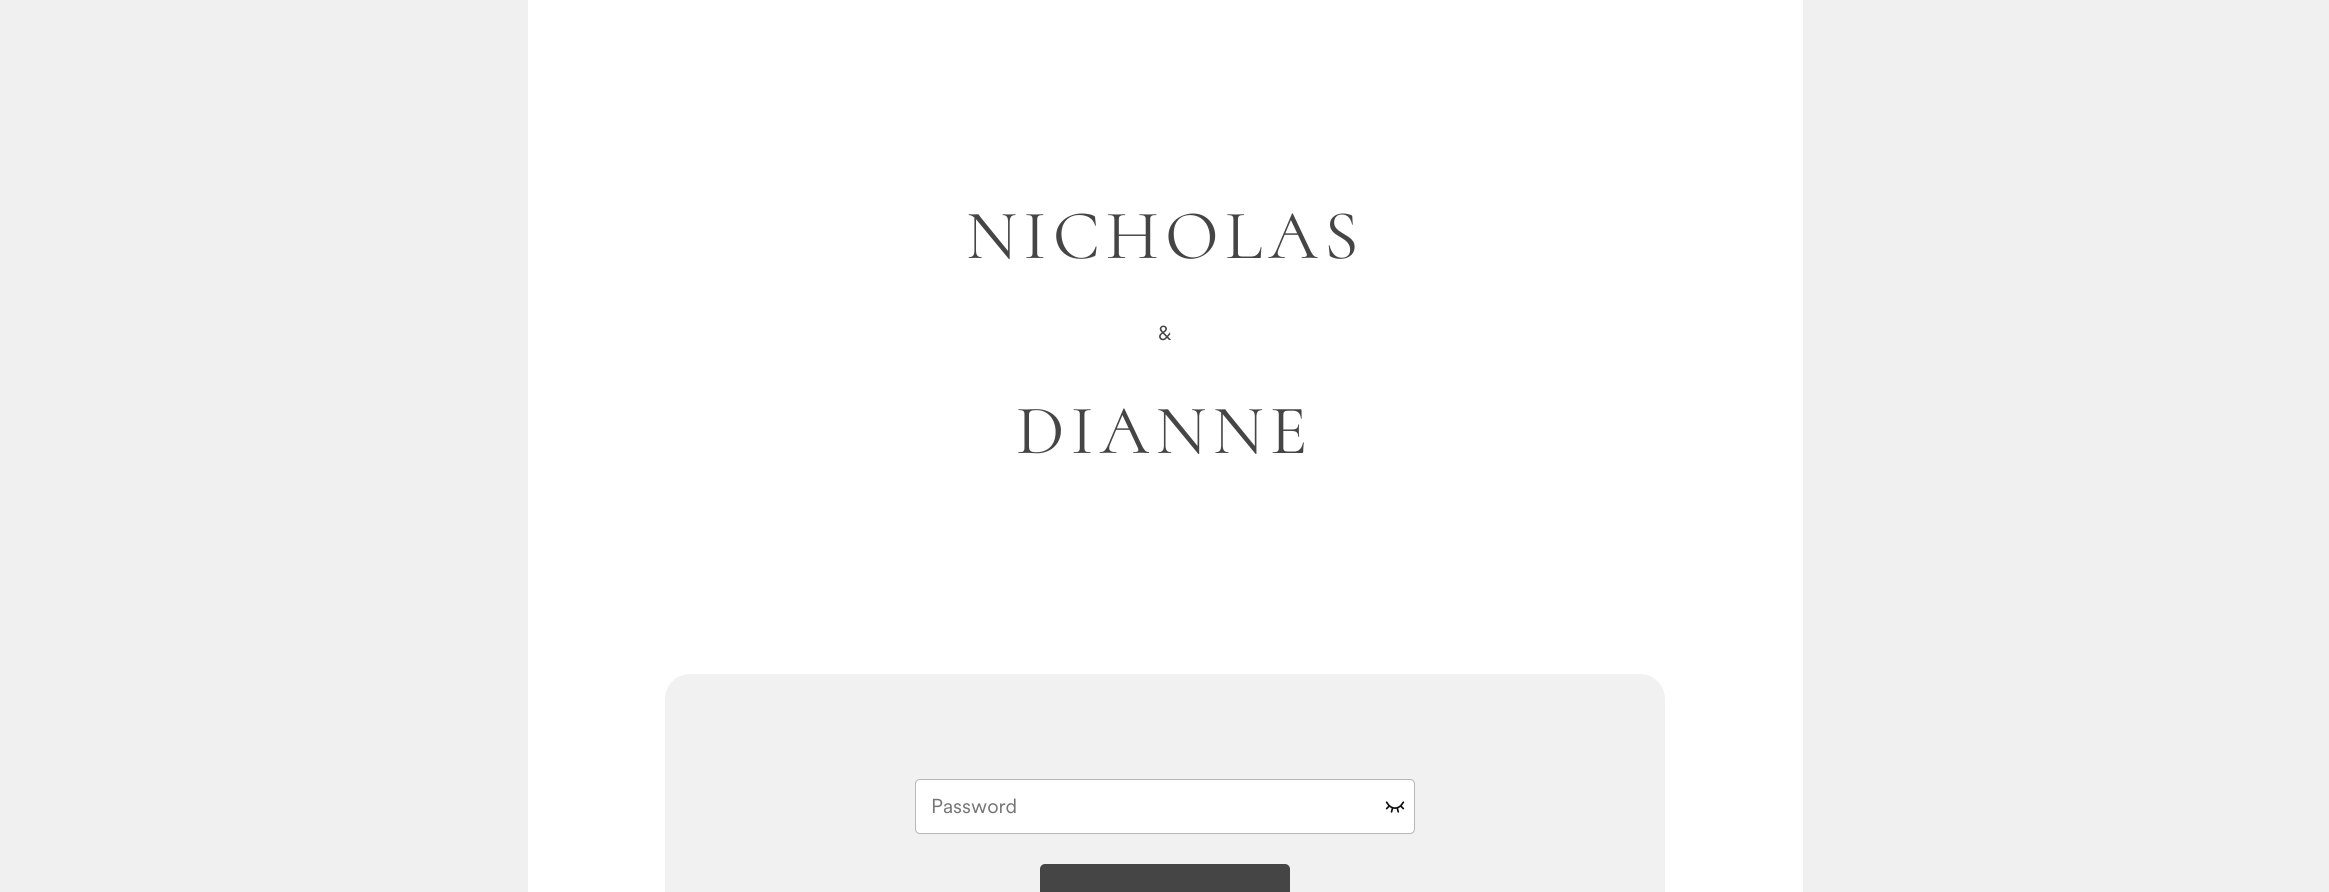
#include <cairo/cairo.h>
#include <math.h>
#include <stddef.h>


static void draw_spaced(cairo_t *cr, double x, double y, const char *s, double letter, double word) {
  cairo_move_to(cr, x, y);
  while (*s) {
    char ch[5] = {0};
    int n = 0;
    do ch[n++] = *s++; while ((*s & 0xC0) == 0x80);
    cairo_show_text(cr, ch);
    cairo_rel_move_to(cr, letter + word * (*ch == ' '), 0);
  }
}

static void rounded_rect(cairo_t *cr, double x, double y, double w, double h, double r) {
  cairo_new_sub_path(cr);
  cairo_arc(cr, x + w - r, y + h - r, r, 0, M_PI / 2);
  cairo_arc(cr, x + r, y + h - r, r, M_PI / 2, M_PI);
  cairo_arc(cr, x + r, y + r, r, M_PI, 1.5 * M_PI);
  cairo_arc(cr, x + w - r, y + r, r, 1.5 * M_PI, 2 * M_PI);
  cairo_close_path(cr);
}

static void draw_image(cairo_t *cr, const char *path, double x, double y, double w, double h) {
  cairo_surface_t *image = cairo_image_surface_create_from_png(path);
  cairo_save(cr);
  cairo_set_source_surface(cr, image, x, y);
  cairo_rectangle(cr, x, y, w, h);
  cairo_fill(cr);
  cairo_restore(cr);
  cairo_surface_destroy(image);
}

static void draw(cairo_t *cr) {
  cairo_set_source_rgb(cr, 240 / 255.0, 240 / 255.0, 240 / 255.0);
  cairo_paint(cr);
  cairo_set_source_rgb(cr, 1, 1, 1);
  cairo_rectangle(cr, 528, 0, 1275, 892);
  cairo_fill(cr);
  cairo_set_source_rgb(cr, 241 / 255.0, 241 / 255.0, 241 / 255.0);
  rounded_rect(cr, 665, 674, 1000, 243, 25);
  cairo_fill(cr);
  cairo_set_source_rgb(cr, 1, 1, 1);
  rounded_rect(cr, 915.5, 779.5, 499, 54, 4.5);
  cairo_fill_preserve(cr);
  cairo_set_source_rgb(cr, 183 / 255.0, 183 / 255.0, 183 / 255.0);
  cairo_set_line_width(cr, 1);
  cairo_stroke(cr);
  draw_image(cr, "images/1.png", 1385, 801, 20, 12);
  cairo_set_source_rgb(cr, 69 / 255.0, 69 / 255.0, 69 / 255.0);
  rounded_rect(cr, 1040, 864, 250, 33, 5);
  cairo_fill(cr);
  cairo_select_font_face(cr, "Cormorant Infant", CAIRO_FONT_SLANT_NORMAL, CAIRO_FONT_WEIGHT_NORMAL);
  cairo_set_font_size(cr, 70);
  draw_spaced(cr, 966, 258, "NICHOLAS", 6.25, 0);
  cairo_select_font_face(cr, "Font", CAIRO_FONT_SLANT_NORMAL, CAIRO_FONT_WEIGHT_NORMAL);
  cairo_set_font_size(cr, 20);
  cairo_move_to(cr, 1158, 340);
  cairo_show_text(cr, "&");
  cairo_select_font_face(cr, "Cormorant Infant", CAIRO_FONT_SLANT_NORMAL, CAIRO_FONT_WEIGHT_NORMAL);
  cairo_set_font_size(cr, 70);
  draw_spaced(cr, 1016, 453, "DIANNE", 6.25, 0);
  cairo_select_font_face(cr, "Font", CAIRO_FONT_SLANT_NORMAL, CAIRO_FONT_WEIGHT_NORMAL);
  cairo_set_font_size(cr, 20);
  cairo_set_source_rgb(cr, 117 / 255.0, 117 / 255.0, 117 / 255.0);
  cairo_move_to(cr, 931, 813);
  cairo_show_text(cr, "Password");
}

int main(void) {
  cairo_surface_t *surface = cairo_image_surface_create(CAIRO_FORMAT_RGB24, 2329, 892);
  cairo_t *cr = cairo_create(surface);
  cairo_font_options_t *options = cairo_font_options_create();
  cairo_font_options_set_hint_metrics(options, CAIRO_HINT_METRICS_OFF);
  cairo_font_options_set_hint_style(options, CAIRO_HINT_STYLE_NONE);
  cairo_set_font_options(cr, options);
  cairo_set_miter_limit(cr, 4);
  draw(cr);
  cairo_surface_write_to_png(surface, "out.png");
  cairo_font_options_destroy(options);
  cairo_destroy(cr);
  cairo_surface_destroy(surface);
  return 0;
}
